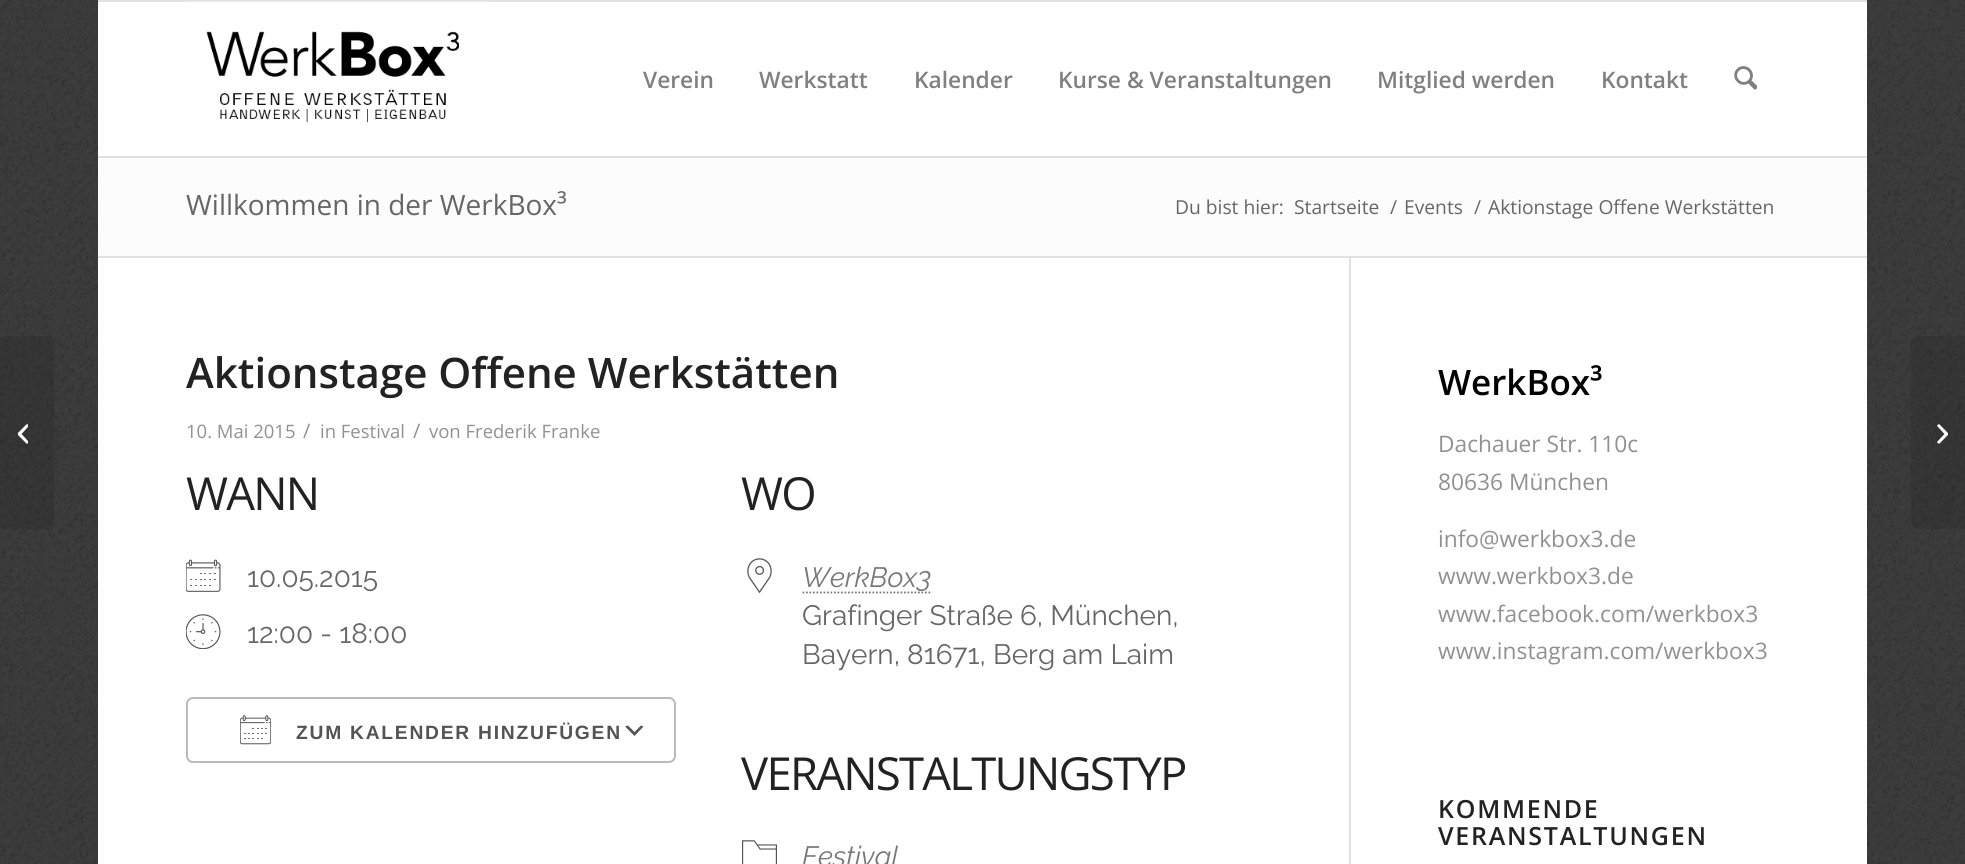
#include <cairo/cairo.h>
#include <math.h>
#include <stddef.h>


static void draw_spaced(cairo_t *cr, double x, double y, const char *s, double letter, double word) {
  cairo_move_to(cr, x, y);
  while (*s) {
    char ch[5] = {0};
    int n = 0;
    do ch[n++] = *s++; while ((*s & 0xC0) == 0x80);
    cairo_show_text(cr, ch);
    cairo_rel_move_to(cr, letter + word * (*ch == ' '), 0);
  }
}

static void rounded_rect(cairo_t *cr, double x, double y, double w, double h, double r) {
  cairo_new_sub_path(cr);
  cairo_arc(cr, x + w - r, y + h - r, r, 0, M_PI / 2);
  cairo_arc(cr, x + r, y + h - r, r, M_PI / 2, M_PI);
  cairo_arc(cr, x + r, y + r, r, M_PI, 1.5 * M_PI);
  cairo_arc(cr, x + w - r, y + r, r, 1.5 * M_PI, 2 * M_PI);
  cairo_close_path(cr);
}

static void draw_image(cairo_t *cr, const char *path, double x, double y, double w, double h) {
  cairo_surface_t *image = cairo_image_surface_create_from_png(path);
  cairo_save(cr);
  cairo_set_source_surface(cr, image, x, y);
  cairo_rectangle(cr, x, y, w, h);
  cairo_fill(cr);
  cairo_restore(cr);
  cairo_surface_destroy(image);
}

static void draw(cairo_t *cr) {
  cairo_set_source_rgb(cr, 51 / 255.0, 51 / 255.0, 51 / 255.0);
  cairo_paint(cr);
  draw_image(cr, "images/1.png", 0, 0, 1965, 864);
  cairo_set_source_rgb(cr, 225 / 255.0, 225 / 255.0, 225 / 255.0);
  cairo_rectangle(cr, 98, 0, 1769, 2);
  cairo_fill(cr);
  cairo_set_source_rgb(cr, 1, 1, 1);
  cairo_rectangle(cr, 98, 2, 1769, 862);
  cairo_fill(cr);
  draw_image(cr, "images/2.png", 186, 1, 307, 122);
  draw_image(cr, "images/3.png", 1734, 66, 23, 24);
  cairo_set_source_rgb(cr, 225 / 255.0, 225 / 255.0, 225 / 255.0);
  cairo_rectangle(cr, 98, 154, 1769, 4);
  cairo_fill(cr);
  cairo_set_source_rgba(cr, 1, 1, 1, 0.95);
  cairo_rectangle(cr, 98, 154, 1769, 2);
  cairo_fill(cr);
  cairo_set_source_rgba(cr, 0, 0, 0, 0.1);
  cairo_new_path(cr);
  cairo_move_to(cr, 0, 336);
  cairo_line_to(cr, 47, 336);
  cairo_curve_to(cr, 51, 336, 54, 339, 54, 343);
  cairo_line_to(cr, 54, 522);
  cairo_curve_to(cr, 54, 526, 51, 529, 47, 529);
  cairo_line_to(cr, 0, 529);
  cairo_close_path(cr);
  cairo_fill(cr);
  draw_image(cr, "images/4.png", 18, 424, 10, 20);
  cairo_set_source_rgb(cr, 252 / 255.0, 252 / 255.0, 252 / 255.0);
  cairo_rectangle(cr, 98, 158, 1769, 98);
  cairo_fill(cr);
  cairo_set_source_rgb(cr, 225 / 255.0, 225 / 255.0, 225 / 255.0);
  cairo_rectangle(cr, 98, 256, 1769, 2);
  cairo_fill(cr);
  cairo_rectangle(cr, 1349, 257, 2, 607);
  cairo_fill(cr);
  draw_image(cr, "images/5.png", 186, 559, 35, 33);
  draw_image(cr, "images/6.png", 186, 614, 35, 35);
  cairo_set_source_rgb(cr, 85 / 255.0, 85 / 255.0, 85 / 255.0);
  cairo_new_path(cr);
  cairo_move_to(cr, 628, 725.5);
  cairo_line_to(cr, 634.5, 732);
  cairo_line_to(cr, 641, 725.5);
  cairo_line_to(cr, 643.5, 726.5);
  cairo_line_to(cr, 634.5, 736);
  cairo_line_to(cr, 625, 726.5);
  cairo_close_path(cr);
  cairo_fill(cr);
  rounded_rect(cr, 187, 698, 488, 64, 6);
  cairo_set_source_rgb(cr, 186 / 255.0, 186 / 255.0, 186 / 255.0);
  cairo_stroke(cr);
  draw_image(cr, "images/7.png", 240, 715, 31, 30);
  draw_image(cr, "images/8.png", 747, 558, 25, 35);
  cairo_new_path(cr);
  cairo_move_to(cr, 802.5, 592.5);
  cairo_line_to(cr, 931.5, 592.5);
  cairo_set_source_rgb(cr, 120 / 255.0, 120 / 255.0, 120 / 255.0);
  cairo_set_line_width(cr, 1.8);
  cairo_set_dash(cr, (double[]){1.75, 1.75}, 2, 0);
  cairo_stroke(cr);
  draw_image(cr, "images/9.png", 742, 840, 35, 24);
  cairo_set_source_rgba(cr, 0, 0, 0, 0.1);
  cairo_new_path(cr);
  cairo_move_to(cr, 1918, 336);
  cairo_line_to(cr, 1965, 336);
  cairo_line_to(cr, 1965, 529);
  cairo_line_to(cr, 1918, 529);
  cairo_curve_to(cr, 1914, 529, 1911, 526, 1911, 522);
  cairo_line_to(cr, 1911, 343);
  cairo_curve_to(cr, 1911, 339, 1914, 336, 1918, 336);
  cairo_close_path(cr);
  cairo_fill(cr);
  draw_image(cr, "images/10.png", 1937, 424, 11, 20);
  cairo_select_font_face(cr, "Open Sans SemiBold", CAIRO_FONT_SLANT_NORMAL, CAIRO_FONT_WEIGHT_NORMAL);
  cairo_set_font_size(cr, 22.75);
  cairo_set_source_rgb(cr, 128 / 255.0, 128 / 255.0, 128 / 255.0);
  cairo_move_to(cr, 643, 88);
  cairo_show_text(cr, "Verein");
  cairo_move_to(cr, 759, 88);
  cairo_show_text(cr, "Werkstatt");
  cairo_move_to(cr, 914, 88);
  cairo_show_text(cr, "Kalender");
  cairo_move_to(cr, 1058, 88);
  cairo_show_text(cr, "Kurse & Veranstaltungen");
  cairo_move_to(cr, 1377, 88);
  cairo_show_text(cr, "Mitglied werden");
  cairo_move_to(cr, 1601, 88);
  cairo_show_text(cr, "Kontakt");
  cairo_select_font_face(cr, "Open Sans", CAIRO_FONT_SLANT_NORMAL, CAIRO_FONT_WEIGHT_NORMAL);
  cairo_set_font_size(cr, 28);
  cairo_set_source_rgb(cr, 102 / 255.0, 102 / 255.0, 102 / 255.0);
  cairo_move_to(cr, 186, 215);
  cairo_show_text(cr, "Willkommen in der WerkBox³");
  cairo_set_font_size(cr, 19.25);
  cairo_move_to(cr, 1175, 214);
  cairo_show_text(cr, "Du bist hier:");
  cairo_move_to(cr, 1294, 214);
  cairo_show_text(cr, "Startseite");
  cairo_move_to(cr, 1390, 214);
  cairo_show_text(cr, "/");
  cairo_move_to(cr, 1404, 214);
  cairo_show_text(cr, "Events");
  cairo_move_to(cr, 1474, 214);
  cairo_show_text(cr, "/");
  cairo_move_to(cr, 1488, 214);
  cairo_show_text(cr, "Aktionstage Offene Werkstätten");
  cairo_select_font_face(cr, "Open Sans SemiBold", CAIRO_FONT_SLANT_NORMAL, CAIRO_FONT_WEIGHT_NORMAL);
  cairo_set_font_size(cr, 42);
  cairo_set_source_rgb(cr, 34 / 255.0, 34 / 255.0, 34 / 255.0);
  cairo_move_to(cr, 186, 388);
  cairo_show_text(cr, "Aktionstage Offene Werkstätten");
  cairo_select_font_face(cr, "Open Sans", CAIRO_FONT_SLANT_NORMAL, CAIRO_FONT_WEIGHT_NORMAL);
  cairo_set_font_size(cr, 18.5);
  cairo_set_source_rgb(cr, 145 / 255.0, 145 / 255.0, 145 / 255.0);
  cairo_move_to(cr, 186, 438);
  cairo_show_text(cr, "10. Mai 2015");
  cairo_set_font_size(cr, 20);
  cairo_move_to(cr, 303, 438);
  cairo_show_text(cr, "/");
  cairo_set_font_size(cr, 18.5);
  cairo_move_to(cr, 320, 438);
  cairo_show_text(cr, "in Festival");
  cairo_set_font_size(cr, 20);
  cairo_move_to(cr, 413, 438);
  cairo_show_text(cr, "/");
  cairo_set_font_size(cr, 18.5);
  cairo_move_to(cr, 429, 438);
  cairo_show_text(cr, "von Frederik Franke");
  cairo_set_font_size(cr, 45.5);
  cairo_set_source_rgb(cr, 34 / 255.0, 34 / 255.0, 34 / 255.0);
  draw_spaced(cr, 186, 510, "WANN", -1.75, 0);
  cairo_select_font_face(cr, "Raleway", CAIRO_FONT_SLANT_NORMAL, CAIRO_FONT_WEIGHT_NORMAL);
  cairo_set_font_size(cr, 28);
  cairo_set_source_rgb(cr, 102 / 255.0, 102 / 255.0, 102 / 255.0);
  cairo_move_to(cr, 247, 587);
  cairo_show_text(cr, "10.05.2015");
  cairo_move_to(cr, 247, 643);
  cairo_show_text(cr, "12:00 - 18:00");
  cairo_select_font_face(cr, "Liberation Sans", CAIRO_FONT_SLANT_NORMAL, CAIRO_FONT_WEIGHT_BOLD);
  cairo_set_font_size(cr, 19.25);
  cairo_set_source_rgb(cr, 84 / 255.0, 84 / 255.0, 84 / 255.0);
  draw_spaced(cr, 296, 739, "ZUM KALENDER HINZUFÜGEN", 1.75, 0);
  cairo_select_font_face(cr, "Open Sans", CAIRO_FONT_SLANT_NORMAL, CAIRO_FONT_WEIGHT_NORMAL);
  cairo_set_font_size(cr, 45.5);
  cairo_set_source_rgb(cr, 34 / 255.0, 34 / 255.0, 34 / 255.0);
  draw_spaced(cr, 741, 510, "WO", -1.75, 0);
  cairo_select_font_face(cr, "Raleway", CAIRO_FONT_SLANT_ITALIC, CAIRO_FONT_WEIGHT_NORMAL);
  cairo_set_font_size(cr, 28);
  cairo_set_source_rgb(cr, 120 / 255.0, 120 / 255.0, 120 / 255.0);
  cairo_move_to(cr, 802, 587);
  cairo_show_text(cr, "WerkBox3");
  cairo_select_font_face(cr, "Raleway", CAIRO_FONT_SLANT_NORMAL, CAIRO_FONT_WEIGHT_NORMAL);
  cairo_set_source_rgb(cr, 102 / 255.0, 102 / 255.0, 102 / 255.0);
  cairo_move_to(cr, 802, 625);
  cairo_show_text(cr, "Grafinger Straße 6, München,");
  cairo_move_to(cr, 802, 664);
  cairo_show_text(cr, "Bayern, 81671, Berg am Laim");
  cairo_select_font_face(cr, "Open Sans", CAIRO_FONT_SLANT_NORMAL, CAIRO_FONT_WEIGHT_NORMAL);
  cairo_set_font_size(cr, 45.5);
  cairo_set_source_rgb(cr, 34 / 255.0, 34 / 255.0, 34 / 255.0);
  draw_spaced(cr, 741, 790, "VERANSTALTUNGSTYP", -1.75, 0);
  cairo_select_font_face(cr, "Raleway", CAIRO_FONT_SLANT_ITALIC, CAIRO_FONT_WEIGHT_NORMAL);
  cairo_set_font_size(cr, 28);
  cairo_set_source_rgb(cr, 120 / 255.0, 120 / 255.0, 120 / 255.0);
  cairo_move_to(cr, 802, 866);
  cairo_show_text(cr, "Festival");
  cairo_select_font_face(cr, "Open Sans SemiBold", CAIRO_FONT_SLANT_NORMAL, CAIRO_FONT_WEIGHT_NORMAL);
  cairo_set_font_size(cr, 35);
  cairo_set_source_rgb(cr, 0, 0, 0);
  cairo_move_to(cr, 1438, 395);
  cairo_show_text(cr, "WerkBox³");
  cairo_select_font_face(cr, "Open Sans", CAIRO_FONT_SLANT_NORMAL, CAIRO_FONT_WEIGHT_NORMAL);
  cairo_set_font_size(cr, 22.75);
  cairo_set_source_rgb(cr, 145 / 255.0, 145 / 255.0, 145 / 255.0);
  cairo_move_to(cr, 1438, 452);
  cairo_show_text(cr, "Dachauer Str. 110c");
  cairo_move_to(cr, 1438, 490);
  cairo_show_text(cr, "80636 München");
  cairo_move_to(cr, 1438, 547);
  cairo_show_text(cr, "info@werkbox3.de");
  cairo_move_to(cr, 1438, 584);
  cairo_show_text(cr, "www.werkbox3.de");
  cairo_move_to(cr, 1438, 622);
  cairo_show_text(cr, "www.facebook.com/werkbox3");
  cairo_move_to(cr, 1438, 659);
  cairo_show_text(cr, "www.instagram.com/werkbox3");
  cairo_select_font_face(cr, "Open Sans SemiBold", CAIRO_FONT_SLANT_NORMAL, CAIRO_FONT_WEIGHT_NORMAL);
  cairo_set_font_size(cr, 25);
  cairo_set_source_rgb(cr, 34 / 255.0, 34 / 255.0, 34 / 255.0);
  draw_spaced(cr, 1438, 818, "KOMMENDE", 1.75, 0);
  draw_spaced(cr, 1438, 845, "VERANSTALTUNGEN", 1.75, 0);
}

int main(void) {
  cairo_surface_t *surface = cairo_image_surface_create(CAIRO_FORMAT_RGB24, 1965, 864);
  cairo_t *cr = cairo_create(surface);
  cairo_font_options_t *options = cairo_font_options_create();
  cairo_font_options_set_hint_metrics(options, CAIRO_HINT_METRICS_OFF);
  cairo_font_options_set_hint_style(options, CAIRO_HINT_STYLE_NONE);
  cairo_set_font_options(cr, options);
  cairo_set_miter_limit(cr, 4);
  draw(cr);
  cairo_surface_write_to_png(surface, "out.png");
  cairo_font_options_destroy(options);
  cairo_destroy(cr);
  cairo_surface_destroy(surface);
  return 0;
}
